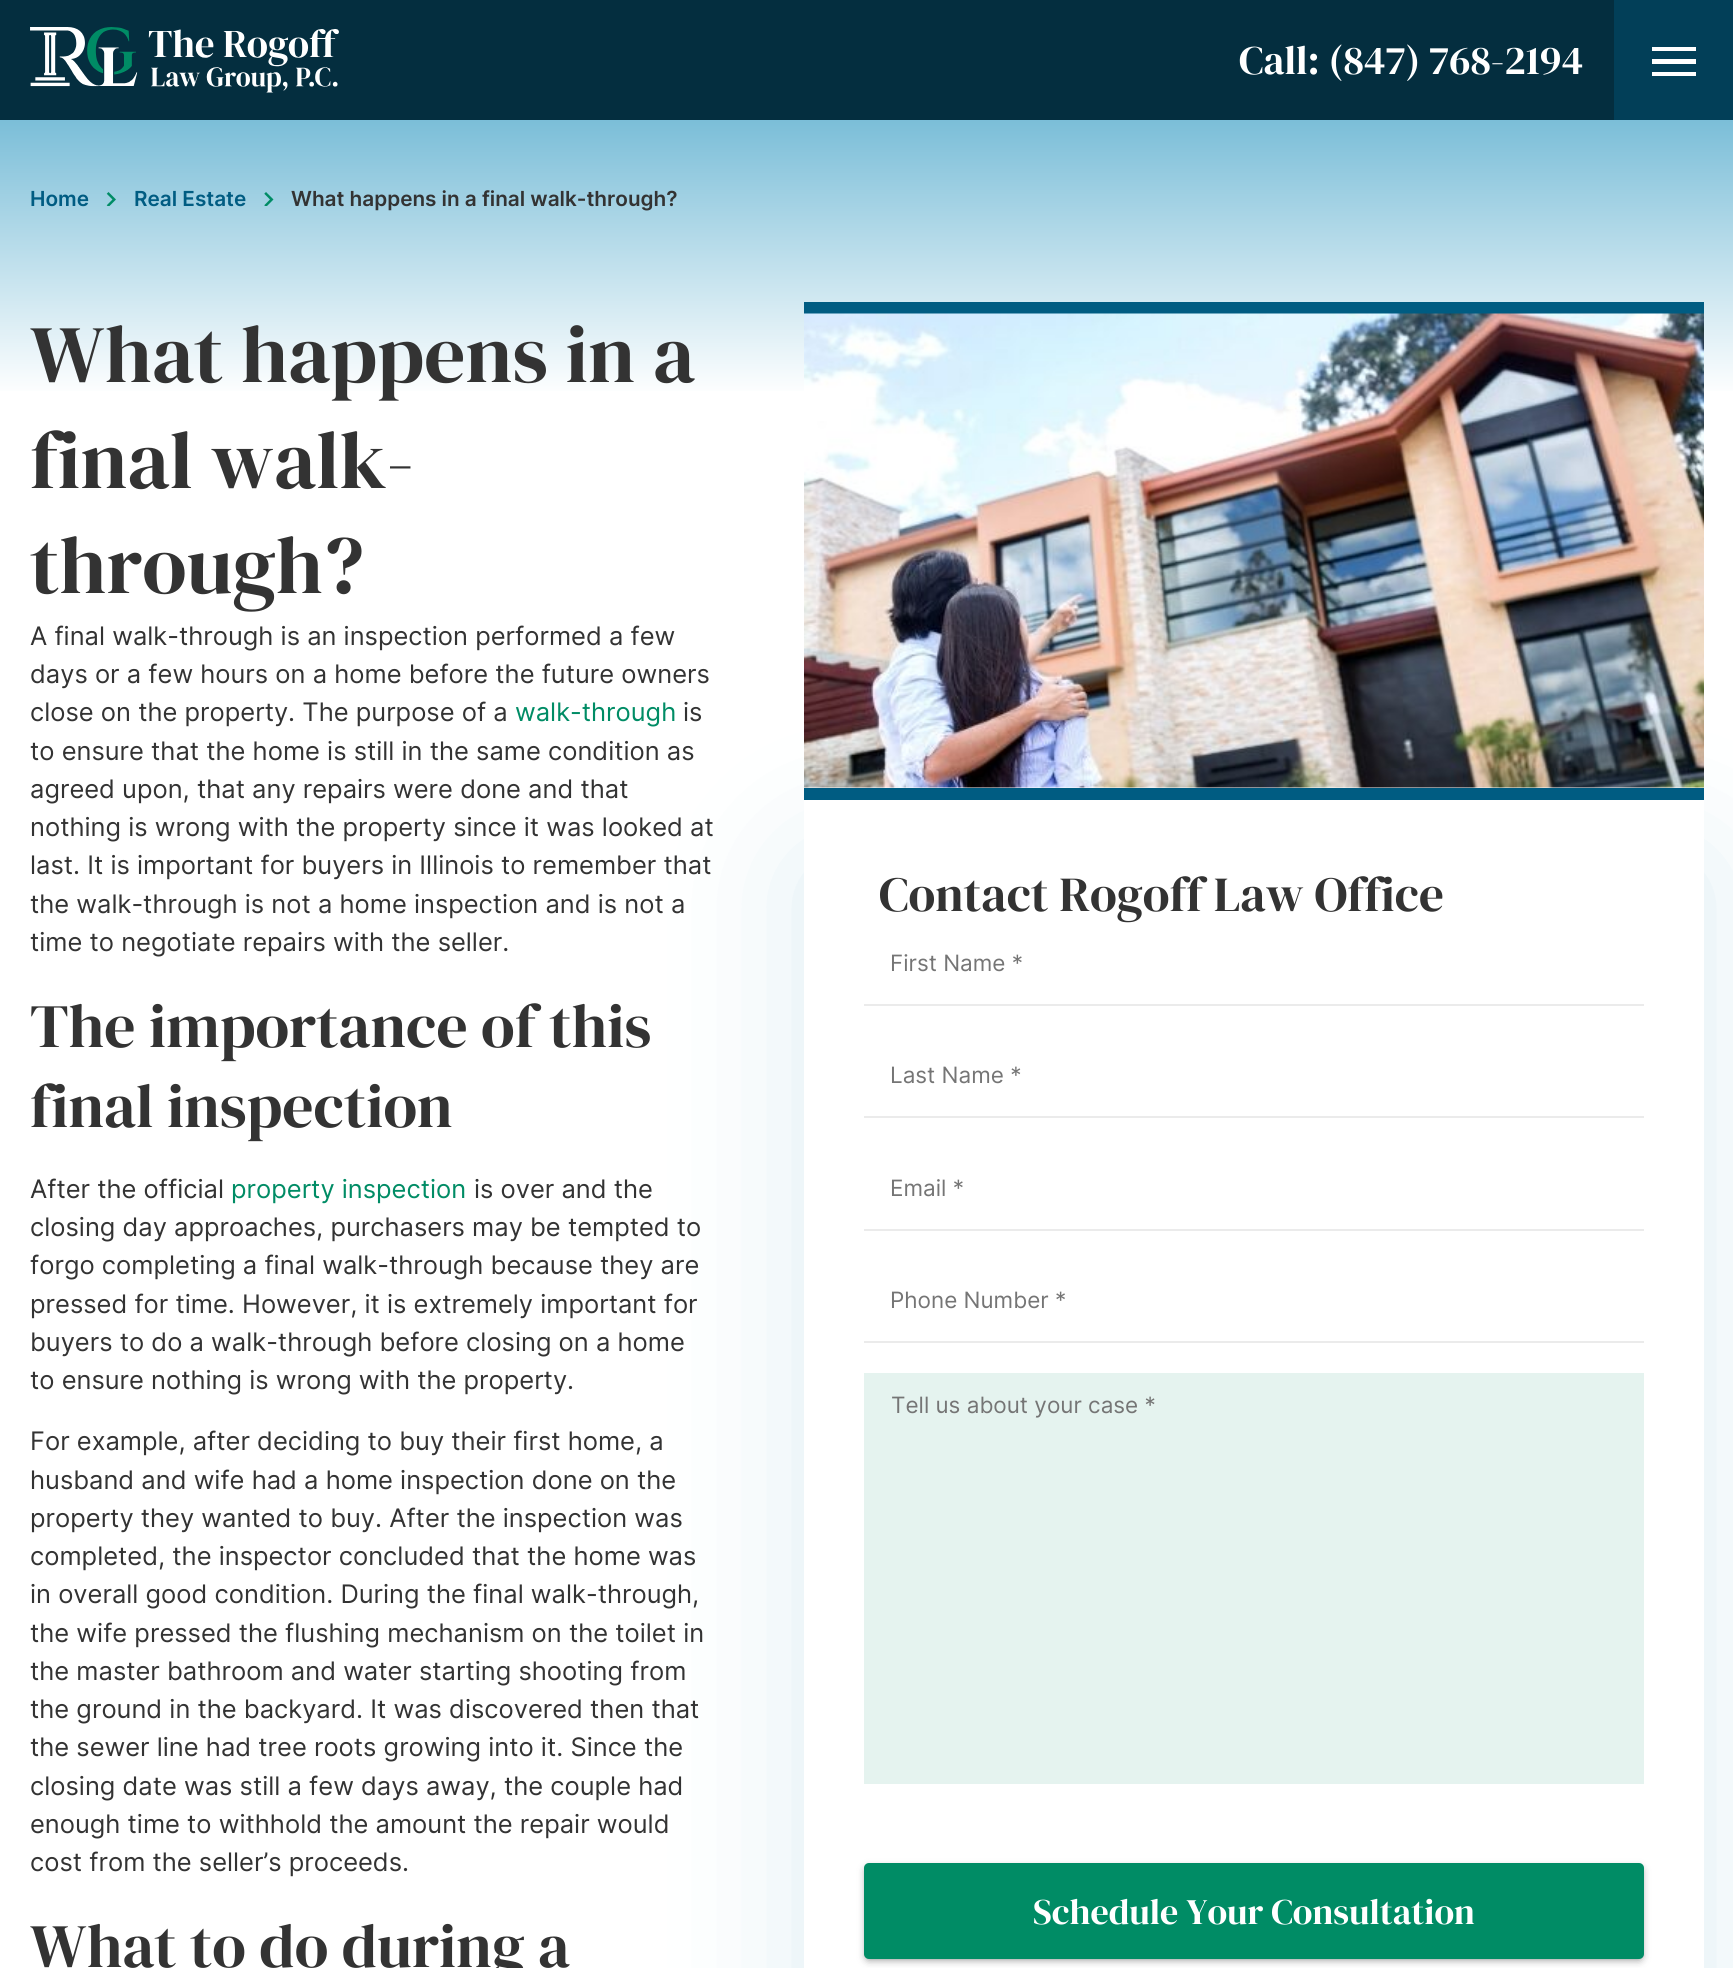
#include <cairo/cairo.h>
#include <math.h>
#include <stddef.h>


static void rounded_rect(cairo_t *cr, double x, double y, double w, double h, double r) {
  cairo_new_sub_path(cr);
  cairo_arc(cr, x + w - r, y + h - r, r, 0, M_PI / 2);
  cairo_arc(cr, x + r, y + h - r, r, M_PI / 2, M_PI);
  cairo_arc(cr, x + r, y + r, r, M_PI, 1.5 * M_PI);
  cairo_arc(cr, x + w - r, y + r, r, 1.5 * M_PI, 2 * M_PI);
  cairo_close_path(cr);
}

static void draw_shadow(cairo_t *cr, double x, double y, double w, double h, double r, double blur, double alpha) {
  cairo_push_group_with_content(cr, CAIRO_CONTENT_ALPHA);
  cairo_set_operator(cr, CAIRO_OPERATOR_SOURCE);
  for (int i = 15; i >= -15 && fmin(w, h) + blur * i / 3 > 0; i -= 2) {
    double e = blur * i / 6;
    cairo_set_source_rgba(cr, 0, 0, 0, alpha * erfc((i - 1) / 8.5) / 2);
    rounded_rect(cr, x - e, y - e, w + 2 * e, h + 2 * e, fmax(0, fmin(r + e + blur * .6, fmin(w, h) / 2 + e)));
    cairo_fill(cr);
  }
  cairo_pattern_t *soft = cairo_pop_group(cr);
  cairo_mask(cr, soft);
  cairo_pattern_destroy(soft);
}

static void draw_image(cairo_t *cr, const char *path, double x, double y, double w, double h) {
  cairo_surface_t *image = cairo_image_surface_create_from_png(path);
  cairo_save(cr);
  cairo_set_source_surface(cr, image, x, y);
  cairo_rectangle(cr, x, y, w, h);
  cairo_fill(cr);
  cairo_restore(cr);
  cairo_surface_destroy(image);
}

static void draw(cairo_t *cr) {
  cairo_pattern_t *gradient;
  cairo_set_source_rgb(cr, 1, 1, 1);
  cairo_paint(cr);
  cairo_set_source_rgb(cr, 4 / 255.0, 46 / 255.0, 63 / 255.0);
  cairo_rectangle(cr, 0, 0, 1614, 120);
  cairo_fill(cr);
  draw_image(cr, "images/1.png", 30, 27, 309, 66);
  cairo_set_source_rgb(cr, 2 / 255.0, 63 / 255.0, 88 / 255.0);
  cairo_rectangle(cr, 1614, 0, 119, 120);
  cairo_fill(cr);
  cairo_save(cr);
  cairo_rectangle(cr, 1652, 47, 45, 30);
  cairo_clip(cr);
  cairo_set_source_rgb(cr, 1, 1, 1);
  cairo_new_path(cr);
  cairo_move_to(cr, 1652, 76);
  cairo_line_to(cr, 1696, 76);
  cairo_line_to(cr, 1696, 72);
  cairo_line_to(cr, 1652, 72);
  cairo_close_path(cr);
  cairo_move_to(cr, 1652, 64);
  cairo_line_to(cr, 1696, 64);
  cairo_line_to(cr, 1696, 59);
  cairo_line_to(cr, 1652, 59);
  cairo_close_path(cr);
  cairo_move_to(cr, 1652, 46);
  cairo_line_to(cr, 1652, 51);
  cairo_line_to(cr, 1696, 51);
  cairo_line_to(cr, 1696, 46);
  cairo_close_path(cr);
  cairo_fill(cr);
  cairo_restore(cr);
  gradient = cairo_pattern_create_linear(867, 120, 867, 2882);
  cairo_pattern_add_color_stop_rgba(gradient, 0, 123 / 255.0, 190 / 255.0, 216 / 255.0, 1);
  cairo_pattern_add_color_stop_rgba(gradient, 0.1, 1, 1, 1, 1);
  cairo_set_source(cr, gradient);
  cairo_pattern_destroy(gradient);
  cairo_rectangle(cr, 0, 120, 1733, 271);
  cairo_fill(cr);
  draw_image(cr, "images/2.png", 106, 192, 10, 14);
  draw_image(cr, "images/3.png", 264, 192, 10, 14);
  cairo_set_source_rgb(cr, 0, 92 / 255.0, 130 / 255.0);
  cairo_rectangle(cr, 804, 302, 900, 12);
  cairo_fill(cr);
  cairo_save(cr);
  cairo_set_fill_rule(cr, CAIRO_FILL_RULE_EVEN_ODD);
  cairo_new_path(cr);
  cairo_move_to(cr, 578, 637);
  cairo_line_to(cr, 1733, 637);
  cairo_line_to(cr, 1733, 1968);
  cairo_line_to(cr, 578, 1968);
  cairo_close_path(cr);
  cairo_move_to(cr, 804, 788);
  cairo_line_to(cr, 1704, 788);
  cairo_line_to(cr, 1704, 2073);
  cairo_line_to(cr, 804, 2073);
  cairo_close_path(cr);
  cairo_clip(cr);
  cairo_set_source_rgb(cr, 29 / 255.0, 137 / 255.0, 179 / 255.0);
  draw_shadow(cr, 804, 863, 900, 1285, 0, 75, 0.15);
  cairo_restore(cr);
  draw_image(cr, "images/4.png", 804, 313, 900, 475);
  cairo_rectangle(cr, 804, 788, 900, 12);
  cairo_fill(cr);
  cairo_set_source_rgb(cr, 235 / 255.0, 235 / 255.0, 235 / 255.0);
  cairo_rectangle(cr, 864, 1004, 780, 2);
  cairo_fill(cr);
  cairo_rectangle(cr, 864, 1116, 780, 2);
  cairo_fill(cr);
  cairo_rectangle(cr, 864, 1229, 780, 2);
  cairo_fill(cr);
  cairo_rectangle(cr, 864, 1341, 780, 2);
  cairo_fill(cr);
  cairo_set_source_rgb(cr, 229 / 255.0, 243 / 255.0, 239 / 255.0);
  cairo_rectangle(cr, 864, 1373, 780, 411);
  cairo_fill(cr);
  cairo_set_source_rgb(cr, 0, 0, 0);
  draw_shadow(cr, 867, 1869, 774, 90, 1.5, 4.5, 0.5);
  cairo_set_source_rgb(cr, 0, 140 / 255.0, 101 / 255.0);
  rounded_rect(cr, 864, 1863, 780, 96, 5);
  cairo_fill(cr);
  cairo_select_font_face(cr, "DM Serif Display", CAIRO_FONT_SLANT_NORMAL, CAIRO_FONT_WEIGHT_NORMAL);
  cairo_set_font_size(cr, 40.5);
  cairo_set_source_rgb(cr, 1, 1, 1);
  cairo_move_to(cr, 1239, 74);
  cairo_show_text(cr, "Call: (847) 768-2194");
  cairo_select_font_face(cr, "Inter SemiBold", CAIRO_FONT_SLANT_NORMAL, CAIRO_FONT_WEIGHT_NORMAL);
  cairo_set_font_size(cr, 20.75);
  cairo_set_source_rgb(cr, 0, 92 / 255.0, 130 / 255.0);
  cairo_move_to(cr, 30, 206);
  cairo_show_text(cr, "Home");
  cairo_move_to(cr, 134, 206);
  cairo_show_text(cr, "Real Estate");
  cairo_set_source_rgb(cr, 51 / 255.0, 51 / 255.0, 51 / 255.0);
  cairo_move_to(cr, 291, 206);
  cairo_show_text(cr, "What happens in a final walk-through?");
  cairo_select_font_face(cr, "DM Serif Display", CAIRO_FONT_SLANT_NORMAL, CAIRO_FONT_WEIGHT_NORMAL);
  cairo_set_font_size(cr, 81.25);
  cairo_move_to(cr, 30, 382);
  cairo_show_text(cr, "What happens in a");
  cairo_move_to(cr, 30, 488);
  cairo_show_text(cr, "final walk-");
  cairo_move_to(cr, 30, 593);
  cairo_show_text(cr, "through?");
  cairo_select_font_face(cr, "Inter", CAIRO_FONT_SLANT_NORMAL, CAIRO_FONT_WEIGHT_NORMAL);
  cairo_set_font_size(cr, 25.5);
  cairo_move_to(cr, 30, 645);
  cairo_show_text(cr, "A final walk-through is an inspection performed a few");
  cairo_move_to(cr, 30, 683);
  cairo_show_text(cr, "days or a few hours on a home before the future owners");
  cairo_move_to(cr, 30, 721);
  cairo_show_text(cr, "close on the property. The purpose of a");
  cairo_set_source_rgb(cr, 0, 140 / 255.0, 101 / 255.0);
  cairo_move_to(cr, 515, 721);
  cairo_show_text(cr, "walk-through");
  cairo_set_source_rgb(cr, 51 / 255.0, 51 / 255.0, 51 / 255.0);
  cairo_move_to(cr, 683, 721);
  cairo_show_text(cr, "is");
  cairo_move_to(cr, 30, 760);
  cairo_show_text(cr, "to ensure that the home is still in the same condition as");
  cairo_move_to(cr, 30, 798);
  cairo_show_text(cr, "agreed upon, that any repairs were done and that");
  cairo_move_to(cr, 30, 836);
  cairo_show_text(cr, "nothing is wrong with the property since it was looked at");
  cairo_move_to(cr, 30, 874);
  cairo_show_text(cr, "last. It is important for buyers in Illinois to remember that");
  cairo_move_to(cr, 30, 913);
  cairo_show_text(cr, "the walk-through is not a home inspection and is not a");
  cairo_move_to(cr, 30, 951);
  cairo_show_text(cr, "time to negotiate repairs with the seller.");
  cairo_select_font_face(cr, "DM Serif Display", CAIRO_FONT_SLANT_NORMAL, CAIRO_FONT_WEIGHT_NORMAL);
  cairo_set_font_size(cr, 61.6);
  cairo_move_to(cr, 30, 1047);
  cairo_show_text(cr, "The importance of this");
  cairo_move_to(cr, 30, 1127);
  cairo_show_text(cr, "final inspection");
  cairo_select_font_face(cr, "Inter", CAIRO_FONT_SLANT_NORMAL, CAIRO_FONT_WEIGHT_NORMAL);
  cairo_set_font_size(cr, 25.5);
  cairo_move_to(cr, 30, 1198);
  cairo_show_text(cr, "After the official");
  cairo_set_source_rgb(cr, 0, 140 / 255.0, 101 / 255.0);
  cairo_move_to(cr, 231, 1198);
  cairo_show_text(cr, "property inspection");
  cairo_set_source_rgb(cr, 51 / 255.0, 51 / 255.0, 51 / 255.0);
  cairo_move_to(cr, 474, 1198);
  cairo_show_text(cr, "is over and the");
  cairo_move_to(cr, 30, 1236);
  cairo_show_text(cr, "closing day approaches, purchasers may be tempted to");
  cairo_move_to(cr, 30, 1274);
  cairo_show_text(cr, "forgo completing a final walk-through because they are");
  cairo_move_to(cr, 30, 1313);
  cairo_show_text(cr, "pressed for time. However, it is extremely important for");
  cairo_move_to(cr, 30, 1351);
  cairo_show_text(cr, "buyers to do a walk-through before closing on a home");
  cairo_move_to(cr, 30, 1389);
  cairo_show_text(cr, "to ensure nothing is wrong with the property.");
  cairo_move_to(cr, 30, 1450);
  cairo_show_text(cr, "For example, after deciding to buy their first home, a");
  cairo_move_to(cr, 30, 1489);
  cairo_show_text(cr, "husband and wife had a home inspection done on the");
  cairo_move_to(cr, 30, 1527);
  cairo_show_text(cr, "property they wanted to buy. After the inspection was");
  cairo_move_to(cr, 30, 1565);
  cairo_show_text(cr, "completed, the inspector concluded that the home was");
  cairo_move_to(cr, 30, 1603);
  cairo_show_text(cr, "in overall good condition. During the final walk-through,");
  cairo_move_to(cr, 30, 1642);
  cairo_show_text(cr, "the wife pressed the flushing mechanism on the toilet in");
  cairo_move_to(cr, 30, 1680);
  cairo_show_text(cr, "the master bathroom and water starting shooting from");
  cairo_move_to(cr, 30, 1718);
  cairo_show_text(cr, "the ground in the backyard. It was discovered then that");
  cairo_move_to(cr, 30, 1756);
  cairo_show_text(cr, "the sewer line had tree roots growing into it. Since the");
  cairo_move_to(cr, 30, 1795);
  cairo_show_text(cr, "closing date was still a few days away, the couple had");
  cairo_move_to(cr, 30, 1833);
  cairo_show_text(cr, "enough time to withhold the amount the repair would");
  cairo_move_to(cr, 30, 1871);
  cairo_show_text(cr, "cost from the seller’s proceeds.");
  cairo_select_font_face(cr, "DM Serif Display", CAIRO_FONT_SLANT_NORMAL, CAIRO_FONT_WEIGHT_NORMAL);
  cairo_set_font_size(cr, 61.6);
  cairo_move_to(cr, 30, 1967);
  cairo_show_text(cr, "What to do during a");
  cairo_set_font_size(cr, 49);
  cairo_move_to(cr, 879, 911);
  cairo_show_text(cr, "Contact Rogoff Law Office");
  cairo_select_font_face(cr, "Inter", CAIRO_FONT_SLANT_NORMAL, CAIRO_FONT_WEIGHT_NORMAL);
  cairo_set_font_size(cr, 22.5);
  cairo_set_source_rgb(cr, 117 / 255.0, 117 / 255.0, 117 / 255.0);
  cairo_move_to(cr, 890, 971);
  cairo_show_text(cr, "First Name *");
  cairo_move_to(cr, 890, 1083);
  cairo_show_text(cr, "Last Name *");
  cairo_move_to(cr, 890, 1196);
  cairo_show_text(cr, "Email *");
  cairo_move_to(cr, 890, 1308);
  cairo_show_text(cr, "Phone Number *");
  cairo_move_to(cr, 891, 1413);
  cairo_show_text(cr, "Tell us about your case *");
  cairo_select_font_face(cr, "DM Serif Display", CAIRO_FONT_SLANT_NORMAL, CAIRO_FONT_WEIGHT_NORMAL);
  cairo_set_font_size(cr, 36);
  cairo_set_source_rgb(cr, 1, 1, 1);
  cairo_move_to(cr, 1033, 1924);
  cairo_show_text(cr, "Schedule Your Consultation");
}

int main(void) {
  cairo_surface_t *surface = cairo_image_surface_create(CAIRO_FORMAT_RGB24, 1733, 1968);
  cairo_t *cr = cairo_create(surface);
  cairo_font_options_t *options = cairo_font_options_create();
  cairo_font_options_set_hint_metrics(options, CAIRO_HINT_METRICS_OFF);
  cairo_font_options_set_hint_style(options, CAIRO_HINT_STYLE_NONE);
  cairo_set_font_options(cr, options);
  cairo_set_miter_limit(cr, 4);
  draw(cr);
  cairo_surface_write_to_png(surface, "out.png");
  cairo_font_options_destroy(options);
  cairo_destroy(cr);
  cairo_surface_destroy(surface);
  return 0;
}
